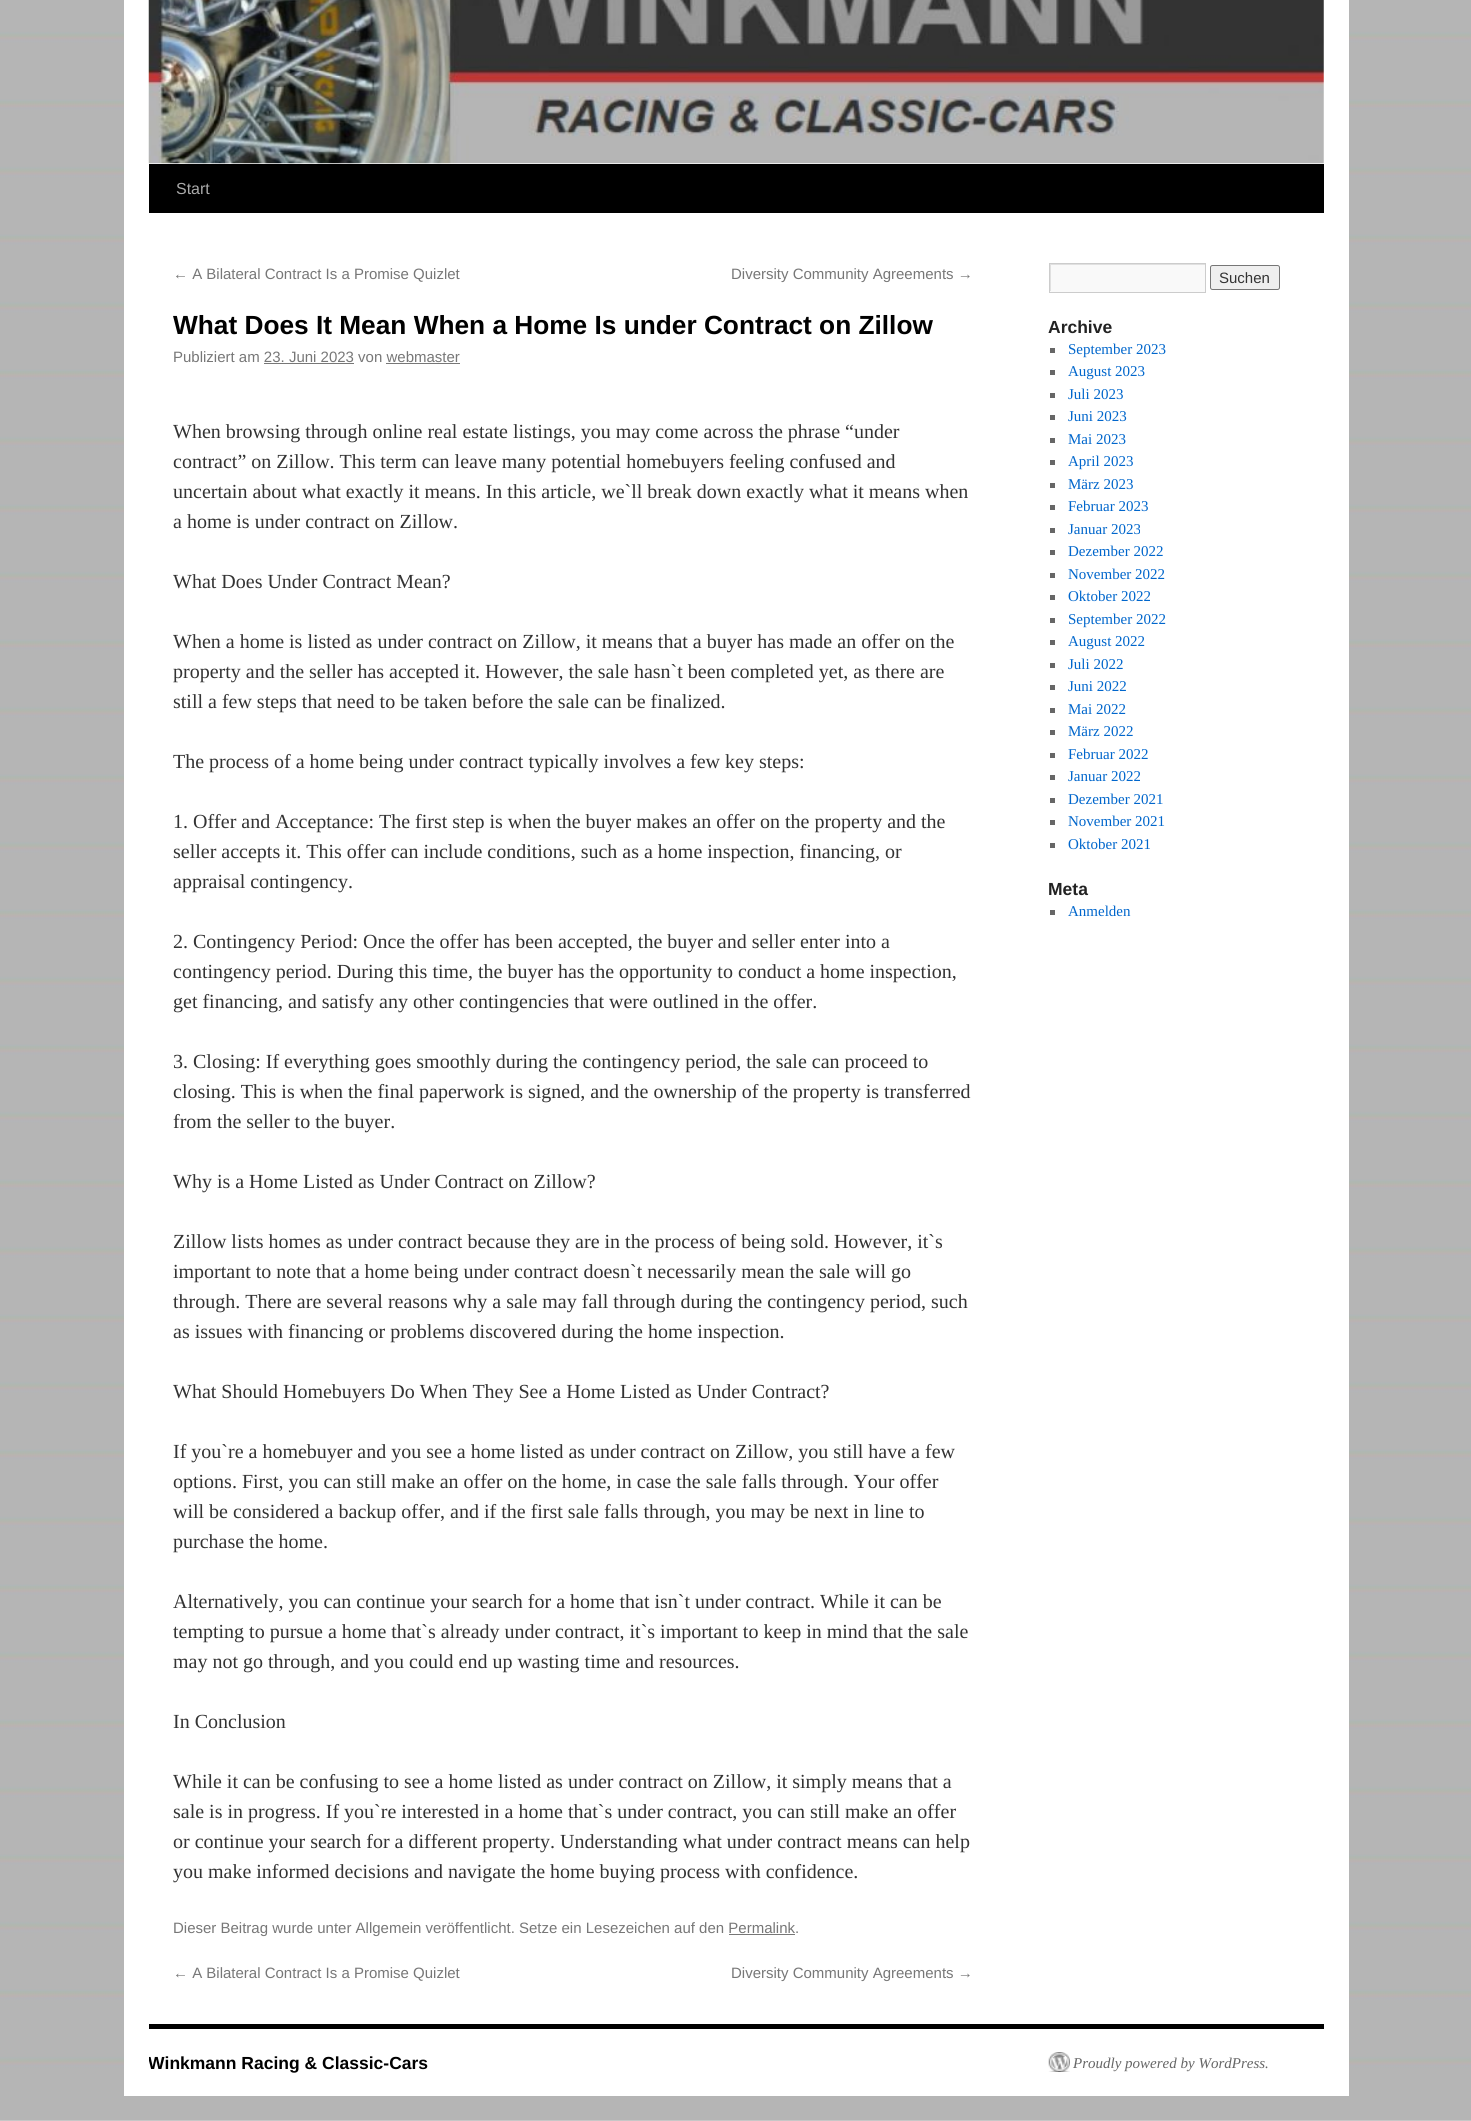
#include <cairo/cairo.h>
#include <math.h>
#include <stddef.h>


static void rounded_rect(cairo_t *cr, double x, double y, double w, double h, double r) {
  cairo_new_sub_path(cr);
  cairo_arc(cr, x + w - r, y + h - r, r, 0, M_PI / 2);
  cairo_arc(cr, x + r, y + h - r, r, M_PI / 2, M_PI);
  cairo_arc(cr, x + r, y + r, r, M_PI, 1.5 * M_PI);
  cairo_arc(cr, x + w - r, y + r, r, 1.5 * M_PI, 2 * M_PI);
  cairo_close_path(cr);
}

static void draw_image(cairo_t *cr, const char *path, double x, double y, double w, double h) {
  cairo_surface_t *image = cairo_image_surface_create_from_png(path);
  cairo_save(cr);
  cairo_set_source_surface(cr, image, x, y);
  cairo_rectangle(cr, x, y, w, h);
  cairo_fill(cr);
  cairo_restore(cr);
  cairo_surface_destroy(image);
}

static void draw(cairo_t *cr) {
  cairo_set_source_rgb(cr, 1, 1, 1);
  cairo_paint(cr);
  draw_image(cr, "images/1.png", 0, 0, 1471, 2121);
  cairo_set_source_rgb(cr, 1, 1, 1);
  cairo_rectangle(cr, 124, 0, 1225, 2096);
  cairo_fill(cr);
  cairo_set_source_rgb(cr, 0, 0, 0);
  cairo_rectangle(cr, 149, 164, 1175, 49);
  cairo_fill(cr);
  draw_image(cr, "images/2.png", 148, 0, 1176, 164);
  cairo_set_source_rgb(cr, 119 / 255.0, 119 / 255.0, 119 / 255.0);
  cairo_rectangle(cr, 264, 363, 90, 1);
  cairo_fill(cr);
  cairo_rectangle(cr, 386, 363, 74, 1);
  cairo_fill(cr);
  cairo_rectangle(cr, 729, 1934, 66, 1);
  cairo_fill(cr);
  cairo_set_source_rgb(cr, 249 / 255.0, 249 / 255.0, 249 / 255.0);
  cairo_rectangle(cr, 1050, 265, 155, 27);
  cairo_fill(cr);
  cairo_save(cr);
  cairo_rectangle(cr, 1050, 264, 155, 27);
  cairo_clip(cr);
  cairo_set_source_rgb(cr, 224 / 255.0, 224 / 255.0, 224 / 255.0);
  cairo_set_fill_rule(cr, CAIRO_FILL_RULE_EVEN_ODD);
  cairo_new_path(cr);
  cairo_move_to(cr, 926, 140);
  cairo_line_to(cr, 1329, 140);
  cairo_line_to(cr, 1329, 415);
  cairo_line_to(cr, 926, 415);
  cairo_close_path(cr);
  cairo_move_to(cr, 1051, 265);
  cairo_line_to(cr, 1206, 265);
  cairo_line_to(cr, 1206, 292);
  cairo_line_to(cr, 1051, 292);
  cairo_close_path(cr);
  cairo_fill(cr);
  cairo_restore(cr);
  cairo_rectangle(cr, 1049.5, 263.5, 156, 29);
  cairo_set_source_rgb(cr, 204 / 255.0, 204 / 255.0, 204 / 255.0);
  cairo_set_line_width(cr, 1);
  cairo_stroke(cr);
  cairo_set_source_rgb(cr, 239 / 255.0, 239 / 255.0, 239 / 255.0);
  rounded_rect(cr, 1210.5, 265.5, 69, 24, 2);
  cairo_fill_preserve(cr);
  cairo_set_source_rgb(cr, 118 / 255.0, 118 / 255.0, 118 / 255.0);
  cairo_stroke(cr);
  cairo_set_source_rgb(cr, 102 / 255.0, 102 / 255.0, 102 / 255.0);
  cairo_rectangle(cr, 1050, 348, 5, 5);
  cairo_fill(cr);
  cairo_rectangle(cr, 1050, 370, 5, 5);
  cairo_fill(cr);
  cairo_rectangle(cr, 1050, 393, 5, 5);
  cairo_fill(cr);
  cairo_rectangle(cr, 1050, 415, 5, 5);
  cairo_fill(cr);
  cairo_rectangle(cr, 1050, 438, 5, 5);
  cairo_fill(cr);
  cairo_rectangle(cr, 1050, 460, 5, 5);
  cairo_fill(cr);
  cairo_rectangle(cr, 1050, 483, 5, 5);
  cairo_fill(cr);
  cairo_rectangle(cr, 1050, 505, 5, 5);
  cairo_fill(cr);
  cairo_rectangle(cr, 1050, 528, 5, 5);
  cairo_fill(cr);
  cairo_rectangle(cr, 1050, 550, 5, 5);
  cairo_fill(cr);
  cairo_rectangle(cr, 1050, 573, 5, 5);
  cairo_fill(cr);
  cairo_rectangle(cr, 1050, 595, 5, 5);
  cairo_fill(cr);
  cairo_rectangle(cr, 1050, 618, 5, 5);
  cairo_fill(cr);
  cairo_rectangle(cr, 1050, 640, 5, 5);
  cairo_fill(cr);
  cairo_rectangle(cr, 1050, 663, 5, 5);
  cairo_fill(cr);
  cairo_rectangle(cr, 1050, 685, 5, 5);
  cairo_fill(cr);
  cairo_rectangle(cr, 1050, 708, 5, 5);
  cairo_fill(cr);
  cairo_rectangle(cr, 1050, 730, 5, 5);
  cairo_fill(cr);
  cairo_rectangle(cr, 1050, 753, 5, 5);
  cairo_fill(cr);
  cairo_rectangle(cr, 1050, 775, 5, 5);
  cairo_fill(cr);
  cairo_rectangle(cr, 1050, 798, 5, 5);
  cairo_fill(cr);
  cairo_rectangle(cr, 1050, 820, 5, 5);
  cairo_fill(cr);
  cairo_rectangle(cr, 1050, 843, 5, 5);
  cairo_fill(cr);
  cairo_rectangle(cr, 1050, 910, 5, 5);
  cairo_fill(cr);
  cairo_set_source_rgb(cr, 0, 0, 0);
  cairo_rectangle(cr, 149, 2024, 1175, 5);
  cairo_fill(cr);
  draw_image(cr, "images/3.png", 1048, 2052, 22, 20);
  cairo_select_font_face(cr, "Liberation Sans", CAIRO_FONT_SLANT_NORMAL, CAIRO_FONT_WEIGHT_NORMAL);
  cairo_set_font_size(cr, 16);
  cairo_set_source_rgb(cr, 170 / 255.0, 170 / 255.0, 170 / 255.0);
  cairo_move_to(cr, 176, 194);
  cairo_show_text(cr, "Start");
  cairo_set_font_size(cr, 15);
  cairo_set_source_rgb(cr, 119 / 255.0, 119 / 255.0, 119 / 255.0);
  cairo_move_to(cr, 173, 279);
  cairo_show_text(cr, "← A Bilateral Contract Is a Promise Quizlet");
  cairo_move_to(cr, 731, 279);
  cairo_show_text(cr, "Diversity Community Agreements →");
  cairo_select_font_face(cr, "Liberation Sans", CAIRO_FONT_SLANT_NORMAL, CAIRO_FONT_WEIGHT_BOLD);
  cairo_set_font_size(cr, 26.25);
  cairo_set_source_rgb(cr, 0, 0, 0);
  cairo_move_to(cr, 173, 334);
  cairo_show_text(cr, "What Does It Mean When a Home Is under Contract on Zillow");
  cairo_select_font_face(cr, "Liberation Sans", CAIRO_FONT_SLANT_NORMAL, CAIRO_FONT_WEIGHT_NORMAL);
  cairo_set_font_size(cr, 15);
  cairo_set_source_rgb(cr, 119 / 255.0, 119 / 255.0, 119 / 255.0);
  cairo_move_to(cr, 173, 362);
  cairo_show_text(cr, "Publiziert am 23. Juni 2023 von webmaster");
  cairo_select_font_face(cr, "Liberation Serif", CAIRO_FONT_SLANT_NORMAL, CAIRO_FONT_WEIGHT_NORMAL);
  cairo_set_font_size(cr, 20);
  cairo_set_source_rgb(cr, 51 / 255.0, 51 / 255.0, 51 / 255.0);
  cairo_move_to(cr, 173, 438);
  cairo_show_text(cr, "When browsing through online real estate listings, you may come across the phrase “under");
  cairo_move_to(cr, 173, 468);
  cairo_show_text(cr, "contract” on Zillow. This term can leave many potential homebuyers feeling confused and");
  cairo_move_to(cr, 173, 498);
  cairo_show_text(cr, "uncertain about what exactly it means. In this article, we`ll break down exactly what it means when");
  cairo_move_to(cr, 173, 528);
  cairo_show_text(cr, "a home is under contract on Zillow.");
  cairo_move_to(cr, 173, 588);
  cairo_show_text(cr, "What Does Under Contract Mean?");
  cairo_move_to(cr, 173, 648);
  cairo_show_text(cr, "When a home is listed as under contract on Zillow, it means that a buyer has made an offer on the");
  cairo_move_to(cr, 173, 678);
  cairo_show_text(cr, "property and the seller has accepted it. However, the sale hasn`t been completed yet, as there are");
  cairo_move_to(cr, 173, 708);
  cairo_show_text(cr, "still a few steps that need to be taken before the sale can be finalized.");
  cairo_move_to(cr, 173, 768);
  cairo_show_text(cr, "The process of a home being under contract typically involves a few key steps:");
  cairo_move_to(cr, 173, 828);
  cairo_show_text(cr, "1. Offer and Acceptance: The first step is when the buyer makes an offer on the property and the");
  cairo_move_to(cr, 173, 858);
  cairo_show_text(cr, "seller accepts it. This offer can include conditions, such as a home inspection, financing, or");
  cairo_move_to(cr, 173, 888);
  cairo_show_text(cr, "appraisal contingency.");
  cairo_move_to(cr, 173, 948);
  cairo_show_text(cr, "2. Contingency Period: Once the offer has been accepted, the buyer and seller enter into a");
  cairo_move_to(cr, 173, 978);
  cairo_show_text(cr, "contingency period. During this time, the buyer has the opportunity to conduct a home inspection,");
  cairo_move_to(cr, 173, 1008);
  cairo_show_text(cr, "get financing, and satisfy any other contingencies that were outlined in the offer.");
  cairo_move_to(cr, 173, 1068);
  cairo_show_text(cr, "3. Closing: If everything goes smoothly during the contingency period, the sale can proceed to");
  cairo_move_to(cr, 173, 1098);
  cairo_show_text(cr, "closing. This is when the final paperwork is signed, and the ownership of the property is transferred");
  cairo_move_to(cr, 173, 1128);
  cairo_show_text(cr, "from the seller to the buyer.");
  cairo_move_to(cr, 173, 1188);
  cairo_show_text(cr, "Why is a Home Listed as Under Contract on Zillow?");
  cairo_move_to(cr, 173, 1248);
  cairo_show_text(cr, "Zillow lists homes as under contract because they are in the process of being sold. However, it`s");
  cairo_move_to(cr, 173, 1278);
  cairo_show_text(cr, "important to note that a home being under contract doesn`t necessarily mean the sale will go");
  cairo_move_to(cr, 173, 1308);
  cairo_show_text(cr, "through. There are several reasons why a sale may fall through during the contingency period, such");
  cairo_move_to(cr, 173, 1338);
  cairo_show_text(cr, "as issues with financing or problems discovered during the home inspection.");
  cairo_move_to(cr, 173, 1398);
  cairo_show_text(cr, "What Should Homebuyers Do When They See a Home Listed as Under Contract?");
  cairo_move_to(cr, 173, 1458);
  cairo_show_text(cr, "If you`re a homebuyer and you see a home listed as under contract on Zillow, you still have a few");
  cairo_move_to(cr, 173, 1488);
  cairo_show_text(cr, "options. First, you can still make an offer on the home, in case the sale falls through. Your offer");
  cairo_move_to(cr, 173, 1518);
  cairo_show_text(cr, "will be considered a backup offer, and if the first sale falls through, you may be next in line to");
  cairo_move_to(cr, 173, 1548);
  cairo_show_text(cr, "purchase the home.");
  cairo_move_to(cr, 173, 1608);
  cairo_show_text(cr, "Alternatively, you can continue your search for a home that isn`t under contract. While it can be");
  cairo_move_to(cr, 173, 1638);
  cairo_show_text(cr, "tempting to pursue a home that`s already under contract, it`s important to keep in mind that the sale");
  cairo_move_to(cr, 173, 1668);
  cairo_show_text(cr, "may not go through, and you could end up wasting time and resources.");
  cairo_move_to(cr, 173, 1728);
  cairo_show_text(cr, "In Conclusion");
  cairo_move_to(cr, 173, 1788);
  cairo_show_text(cr, "While it can be confusing to see a home listed as under contract on Zillow, it simply means that a");
  cairo_move_to(cr, 173, 1818);
  cairo_show_text(cr, "sale is in progress. If you`re interested in a home that`s under contract, you can still make an offer");
  cairo_move_to(cr, 173, 1848);
  cairo_show_text(cr, "or continue your search for a different property. Understanding what under contract means can help");
  cairo_move_to(cr, 173, 1878);
  cairo_show_text(cr, "you make informed decisions and navigate the home buying process with confidence.");
  cairo_select_font_face(cr, "Liberation Sans", CAIRO_FONT_SLANT_NORMAL, CAIRO_FONT_WEIGHT_NORMAL);
  cairo_set_font_size(cr, 15);
  cairo_set_source_rgb(cr, 119 / 255.0, 119 / 255.0, 119 / 255.0);
  cairo_move_to(cr, 173, 1933);
  cairo_show_text(cr, "Dieser Beitrag wurde unter Allgemein veröffentlicht. Setze ein Lesezeichen auf den Permalink.");
  cairo_move_to(cr, 173, 1978);
  cairo_show_text(cr, "← A Bilateral Contract Is a Promise Quizlet");
  cairo_move_to(cr, 731, 1978);
  cairo_show_text(cr, "Diversity Community Agreements →");
  cairo_set_source_rgb(cr, 51 / 255.0, 51 / 255.0, 51 / 255.0);
  cairo_move_to(cr, 1219, 283);
  cairo_show_text(cr, "Suchen");
  cairo_select_font_face(cr, "Liberation Sans", CAIRO_FONT_SLANT_NORMAL, CAIRO_FONT_WEIGHT_BOLD);
  cairo_set_font_size(cr, 17.5);
  cairo_set_source_rgb(cr, 34 / 255.0, 34 / 255.0, 34 / 255.0);
  cairo_move_to(cr, 1048, 333);
  cairo_show_text(cr, "Archive");
  cairo_select_font_face(cr, "Liberation Serif", CAIRO_FONT_SLANT_NORMAL, CAIRO_FONT_WEIGHT_NORMAL);
  cairo_set_font_size(cr, 15);
  cairo_set_source_rgb(cr, 0, 102 / 255.0, 204 / 255.0);
  cairo_move_to(cr, 1068, 354);
  cairo_show_text(cr, "September 2023");
  cairo_move_to(cr, 1068, 376);
  cairo_show_text(cr, "August 2023");
  cairo_move_to(cr, 1068, 399);
  cairo_show_text(cr, "Juli 2023");
  cairo_move_to(cr, 1068, 421);
  cairo_show_text(cr, "Juni 2023");
  cairo_move_to(cr, 1068, 444);
  cairo_show_text(cr, "Mai 2023");
  cairo_move_to(cr, 1068, 466);
  cairo_show_text(cr, "April 2023");
  cairo_move_to(cr, 1068, 489);
  cairo_show_text(cr, "März 2023");
  cairo_move_to(cr, 1068, 511);
  cairo_show_text(cr, "Februar 2023");
  cairo_move_to(cr, 1068, 534);
  cairo_show_text(cr, "Januar 2023");
  cairo_move_to(cr, 1068, 556);
  cairo_show_text(cr, "Dezember 2022");
  cairo_move_to(cr, 1068, 579);
  cairo_show_text(cr, "November 2022");
  cairo_move_to(cr, 1068, 601);
  cairo_show_text(cr, "Oktober 2022");
  cairo_move_to(cr, 1068, 624);
  cairo_show_text(cr, "September 2022");
  cairo_move_to(cr, 1068, 646);
  cairo_show_text(cr, "August 2022");
  cairo_move_to(cr, 1068, 669);
  cairo_show_text(cr, "Juli 2022");
  cairo_move_to(cr, 1068, 691);
  cairo_show_text(cr, "Juni 2022");
  cairo_move_to(cr, 1068, 714);
  cairo_show_text(cr, "Mai 2022");
  cairo_move_to(cr, 1068, 736);
  cairo_show_text(cr, "März 2022");
  cairo_move_to(cr, 1068, 759);
  cairo_show_text(cr, "Februar 2022");
  cairo_move_to(cr, 1068, 781);
  cairo_show_text(cr, "Januar 2022");
  cairo_move_to(cr, 1068, 804);
  cairo_show_text(cr, "Dezember 2021");
  cairo_move_to(cr, 1068, 826);
  cairo_show_text(cr, "November 2021");
  cairo_move_to(cr, 1068, 849);
  cairo_show_text(cr, "Oktober 2021");
  cairo_select_font_face(cr, "Liberation Sans", CAIRO_FONT_SLANT_NORMAL, CAIRO_FONT_WEIGHT_BOLD);
  cairo_set_font_size(cr, 17.5);
  cairo_set_source_rgb(cr, 34 / 255.0, 34 / 255.0, 34 / 255.0);
  cairo_move_to(cr, 1048, 895);
  cairo_show_text(cr, "Meta");
  cairo_select_font_face(cr, "Liberation Serif", CAIRO_FONT_SLANT_NORMAL, CAIRO_FONT_WEIGHT_NORMAL);
  cairo_set_font_size(cr, 15);
  cairo_set_source_rgb(cr, 0, 102 / 255.0, 204 / 255.0);
  cairo_move_to(cr, 1068, 916);
  cairo_show_text(cr, "Anmelden");
  cairo_save(cr);
  cairo_rectangle(cr, 149, 2029, 1175, 67);
  cairo_clip(cr);
  cairo_select_font_face(cr, "Liberation Sans", CAIRO_FONT_SLANT_NORMAL, CAIRO_FONT_WEIGHT_BOLD);
  cairo_set_font_size(cr, 17.5);
  cairo_set_source_rgb(cr, 0, 0, 0);
  cairo_move_to(cr, 148, 2069);
  cairo_show_text(cr, "Winkmann Racing & Classic-Cars");
  cairo_restore(cr);
  cairo_select_font_face(cr, "Liberation Serif", CAIRO_FONT_SLANT_ITALIC, CAIRO_FONT_WEIGHT_NORMAL);
  cairo_set_source_rgb(cr, 102 / 255.0, 102 / 255.0, 102 / 255.0);
  cairo_move_to(cr, 1073, 2068);
  cairo_show_text(cr, "Proudly powered by WordPress.");
}

int main(void) {
  cairo_surface_t *surface = cairo_image_surface_create(CAIRO_FORMAT_RGB24, 1471, 2121);
  cairo_t *cr = cairo_create(surface);
  cairo_font_options_t *options = cairo_font_options_create();
  cairo_font_options_set_hint_metrics(options, CAIRO_HINT_METRICS_OFF);
  cairo_font_options_set_hint_style(options, CAIRO_HINT_STYLE_NONE);
  cairo_set_font_options(cr, options);
  cairo_set_miter_limit(cr, 4);
  draw(cr);
  cairo_surface_write_to_png(surface, "out.png");
  cairo_font_options_destroy(options);
  cairo_destroy(cr);
  cairo_surface_destroy(surface);
  return 0;
}
